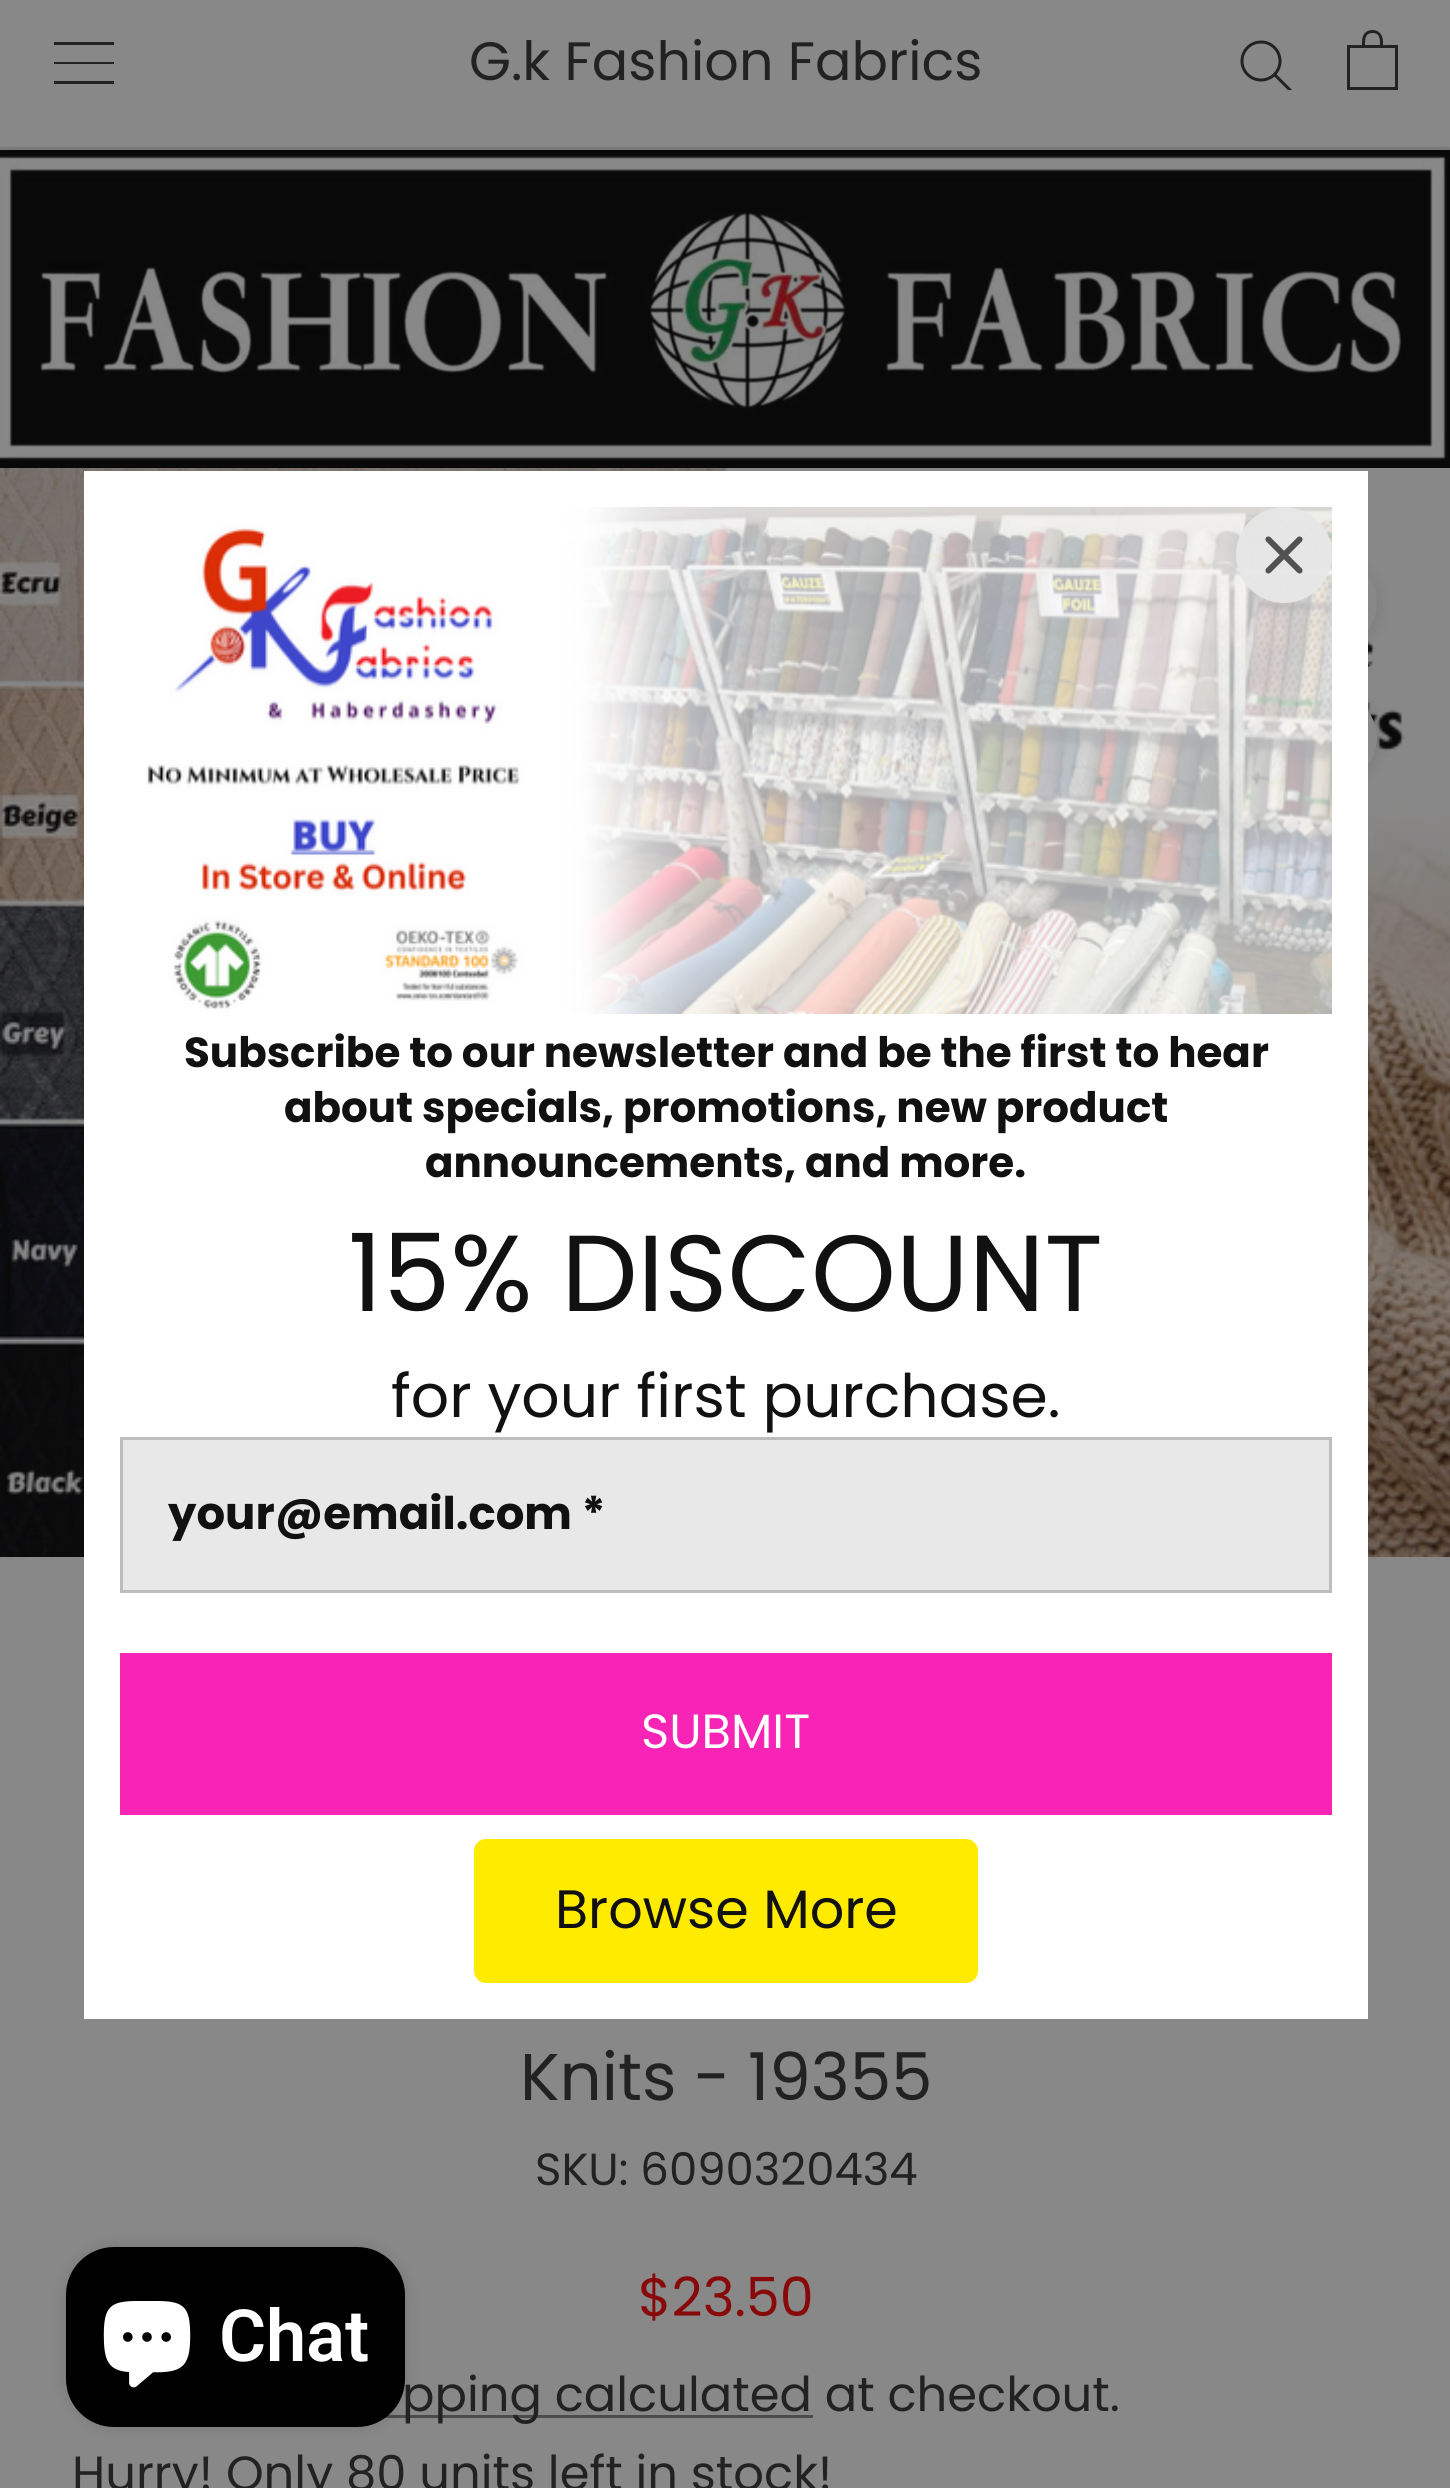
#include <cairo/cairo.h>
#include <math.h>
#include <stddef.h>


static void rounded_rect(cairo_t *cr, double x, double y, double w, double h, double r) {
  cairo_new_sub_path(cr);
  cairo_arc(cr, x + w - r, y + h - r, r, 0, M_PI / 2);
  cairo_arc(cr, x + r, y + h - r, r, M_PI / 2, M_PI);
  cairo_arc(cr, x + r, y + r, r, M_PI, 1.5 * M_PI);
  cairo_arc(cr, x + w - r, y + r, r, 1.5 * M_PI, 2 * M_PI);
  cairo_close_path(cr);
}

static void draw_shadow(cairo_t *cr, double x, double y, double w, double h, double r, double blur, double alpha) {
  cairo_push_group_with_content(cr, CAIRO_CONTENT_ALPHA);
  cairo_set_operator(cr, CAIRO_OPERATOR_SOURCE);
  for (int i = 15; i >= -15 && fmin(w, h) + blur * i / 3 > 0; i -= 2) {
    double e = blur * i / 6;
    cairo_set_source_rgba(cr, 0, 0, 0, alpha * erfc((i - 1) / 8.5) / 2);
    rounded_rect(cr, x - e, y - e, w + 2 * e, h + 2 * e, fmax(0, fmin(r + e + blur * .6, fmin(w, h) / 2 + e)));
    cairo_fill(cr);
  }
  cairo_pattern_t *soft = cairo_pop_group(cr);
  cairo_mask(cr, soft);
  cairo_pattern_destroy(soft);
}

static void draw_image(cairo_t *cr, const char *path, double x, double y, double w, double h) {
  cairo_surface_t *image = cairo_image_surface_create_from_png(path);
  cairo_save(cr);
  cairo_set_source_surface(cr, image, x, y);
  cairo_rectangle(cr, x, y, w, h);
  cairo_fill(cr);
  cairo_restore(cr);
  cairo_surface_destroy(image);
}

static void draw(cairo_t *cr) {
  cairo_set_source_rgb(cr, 136 / 255.0, 136 / 255.0, 136 / 255.0);
  cairo_paint(cr);
  cairo_set_source_rgb(cr, 121 / 255.0, 121 / 255.0, 121 / 255.0);
  cairo_rectangle(cr, 0, 147, 1450, 3);
  cairo_fill(cr);
  cairo_set_source_rgb(cr, 34 / 255.0, 34 / 255.0, 34 / 255.0);
  cairo_new_path(cr);
  cairo_move_to(cr, 54, 84);
  cairo_line_to(cr, 54, 81);
  cairo_line_to(cr, 114, 81);
  cairo_line_to(cr, 114, 84);
  cairo_close_path(cr);
  cairo_move_to(cr, 54, 62);
  cairo_line_to(cr, 114, 62);
  cairo_line_to(cr, 114, 64);
  cairo_line_to(cr, 54, 64);
  cairo_close_path(cr);
  cairo_move_to(cr, 54, 42);
  cairo_line_to(cr, 114, 42);
  cairo_line_to(cr, 114, 45);
  cairo_line_to(cr, 54, 45);
  cairo_close_path(cr);
  cairo_fill(cr);
  cairo_save(cr);
  cairo_rectangle(cr, 1239, 39, 54, 51);
  cairo_clip(cr);
  cairo_new_path(cr);
  cairo_move_to(cr, 1290, 90);
  cairo_line_to(cr, 1275, 75);
  cairo_set_line_width(cr, 3);
  cairo_set_line_cap(cr, CAIRO_LINE_CAP_SQUARE);
  cairo_stroke(cr);
  cairo_restore(cr);
  cairo_arc(cr, 1261, 61, 19, 0, 2 * M_PI);
  cairo_set_line_width(cr, 3);
  cairo_stroke(cr);
  draw_image(cr, "images/1.png", 1347, 30, 51, 60);
  draw_image(cr, "images/2.png", 0, 150, 1450, 318);
  draw_image(cr, "images/3.png", 0, 468, 1450, 1089);
  cairo_set_source_rgb(cr, 36 / 255.0, 36 / 255.0, 36 / 255.0);
  draw_shadow(cr, 1287, 561, 90, 90, 45, 7.5, 0.15);
  cairo_set_source_rgb(cr, 136 / 255.0, 136 / 255.0, 136 / 255.0);
  cairo_arc(cr, 1332, 603, 45, 0, 2 * M_PI);
  cairo_fill(cr);
  cairo_set_source_rgb(cr, 36 / 255.0, 36 / 255.0, 36 / 255.0);
  draw_shadow(cr, 1287, 696, 90, 90, 45, 7.5, 0.15);
  cairo_set_source_rgb(cr, 136 / 255.0, 136 / 255.0, 136 / 255.0);
  cairo_arc(cr, 1332, 738, 45, 0, 2 * M_PI);
  cairo_fill(cr);
  cairo_set_source_rgb(cr, 75 / 255.0, 75 / 255.0, 75 / 255.0);
  cairo_rectangle(cr, 385, 2415, 428, 3);
  cairo_fill(cr);
  cairo_set_source_rgb(cr, 1, 1, 1);
  cairo_rectangle(cr, 84, 471, 1284, 1548);
  cairo_fill(cr);
  draw_image(cr, "images/5.png", 146, 507, 1186, 507);
  cairo_set_source_rgba(cr, 231 / 255.0, 231 / 255.0, 231 / 255.0, 0.95);
  cairo_arc(cr, 1284, 555, 48, 0, 2 * M_PI);
  cairo_fill(cr);
  draw_image(cr, "images/4.png", 1265, 536, 38, 38);
  cairo_set_source_rgb(cr, 232 / 255.0, 232 / 255.0, 232 / 255.0);
  cairo_rectangle(cr, 121.5, 1438.5, 1209, 153);
  cairo_fill_preserve(cr);
  cairo_set_source_rgb(cr, 189 / 255.0, 189 / 255.0, 189 / 255.0);
  cairo_stroke(cr);
  cairo_set_source_rgb(cr, 247 / 255.0, 36 / 255.0, 182 / 255.0);
  cairo_rectangle(cr, 120, 1653, 1212, 162);
  cairo_fill(cr);
  cairo_set_source_rgb(cr, 1, 235 / 255.0, 0);
  rounded_rect(cr, 474, 1839, 504, 144, 12);
  cairo_fill(cr);
  cairo_set_source_rgb(cr, 0, 0, 0);
  draw_shadow(cr, 66, 2247, 339, 180, 48, 7.5, 0.15);
  cairo_set_source_rgb(cr, 0, 0, 0);
  rounded_rect(cr, 66, 2247, 339, 180, 48);
  cairo_fill(cr);
  draw_image(cr, "images/6.png", 103, 2301, 88, 87);
  cairo_select_font_face(cr, "Poppins", CAIRO_FONT_SLANT_NORMAL, CAIRO_FONT_WEIGHT_NORMAL);
  cairo_set_font_size(cr, 54);
  cairo_set_source_rgb(cr, 34 / 255.0, 34 / 255.0, 34 / 255.0);
  cairo_move_to(cr, 469, 80);
  cairo_show_text(cr, "G.k Fashion Fabrics");
  cairo_set_font_size(cr, 66);
  cairo_move_to(cr, 520, 2100);
  cairo_show_text(cr, "Knits - 19355");
  cairo_set_font_size(cr, 45);
  cairo_move_to(cr, 535, 2185);
  cairo_show_text(cr, "SKU: 6090320434");
  cairo_set_font_size(cr, 54);
  cairo_set_source_rgb(cr, 136 / 255.0, 9 / 255.0, 9 / 255.0);
  cairo_move_to(cr, 638, 2316);
  cairo_show_text(cr, "$23.50");
  cairo_set_font_size(cr, 48);
  cairo_set_source_rgb(cr, 34 / 255.0, 34 / 255.0, 34 / 255.0);
  cairo_move_to(cr, 402, 2411);
  cairo_show_text(cr, "pping calculated at checkout.");
  cairo_move_to(cr, 72, 2490);
  cairo_show_text(cr, "Hurry! Only 80 units left in stock!");
  cairo_select_font_face(cr, "Poppins", CAIRO_FONT_SLANT_NORMAL, CAIRO_FONT_WEIGHT_BOLD);
  cairo_set_font_size(cr, 42);
  cairo_set_source_rgb(cr, 17 / 255.0, 17 / 255.0, 17 / 255.0);
  cairo_move_to(cr, 184, 1067);
  cairo_show_text(cr, "Subscribe to our newsletter and be the first to hear");
  cairo_move_to(cr, 284, 1122);
  cairo_show_text(cr, "about specials, promotions, new product");
  cairo_move_to(cr, 425, 1177);
  cairo_show_text(cr, "announcements, and more.");
  cairo_select_font_face(cr, "Poppins", CAIRO_FONT_SLANT_NORMAL, CAIRO_FONT_WEIGHT_NORMAL);
  cairo_set_font_size(cr, 108);
  cairo_move_to(cr, 348, 1311);
  cairo_show_text(cr, "15% DISCOUNT");
  cairo_set_font_size(cr, 60);
  cairo_move_to(cr, 391, 1417);
  cairo_show_text(cr, "for your first purchase.");
  cairo_select_font_face(cr, "Poppins", CAIRO_FONT_SLANT_NORMAL, CAIRO_FONT_WEIGHT_BOLD);
  cairo_set_font_size(cr, 45);
  cairo_move_to(cr, 168, 1529);
  cairo_show_text(cr, "your@email.com *");
  cairo_select_font_face(cr, "Poppins", CAIRO_FONT_SLANT_NORMAL, CAIRO_FONT_WEIGHT_NORMAL);
  cairo_set_font_size(cr, 48);
  cairo_set_source_rgb(cr, 1, 1, 1);
  cairo_move_to(cr, 641, 1748);
  cairo_show_text(cr, "SUBMIT");
  cairo_set_font_size(cr, 54);
  cairo_set_source_rgb(cr, 17 / 255.0, 17 / 255.0, 17 / 255.0);
  cairo_move_to(cr, 555, 1928);
  cairo_show_text(cr, "Browse More");
  cairo_select_font_face(cr, "Roboto SemiBold", CAIRO_FONT_SLANT_NORMAL, CAIRO_FONT_WEIGHT_NORMAL);
  cairo_set_font_size(cr, 72);
  cairo_set_source_rgb(cr, 1, 1, 1);
  cairo_move_to(cr, 219, 2361);
  cairo_show_text(cr, "Chat");
}

int main(void) {
  cairo_surface_t *surface = cairo_image_surface_create(CAIRO_FORMAT_RGB24, 1450, 2488);
  cairo_t *cr = cairo_create(surface);
  cairo_font_options_t *options = cairo_font_options_create();
  cairo_font_options_set_hint_metrics(options, CAIRO_HINT_METRICS_OFF);
  cairo_font_options_set_hint_style(options, CAIRO_HINT_STYLE_NONE);
  cairo_set_font_options(cr, options);
  cairo_set_miter_limit(cr, 4);
  draw(cr);
  cairo_surface_write_to_png(surface, "out.png");
  cairo_font_options_destroy(options);
  cairo_destroy(cr);
  cairo_surface_destroy(surface);
  return 0;
}
